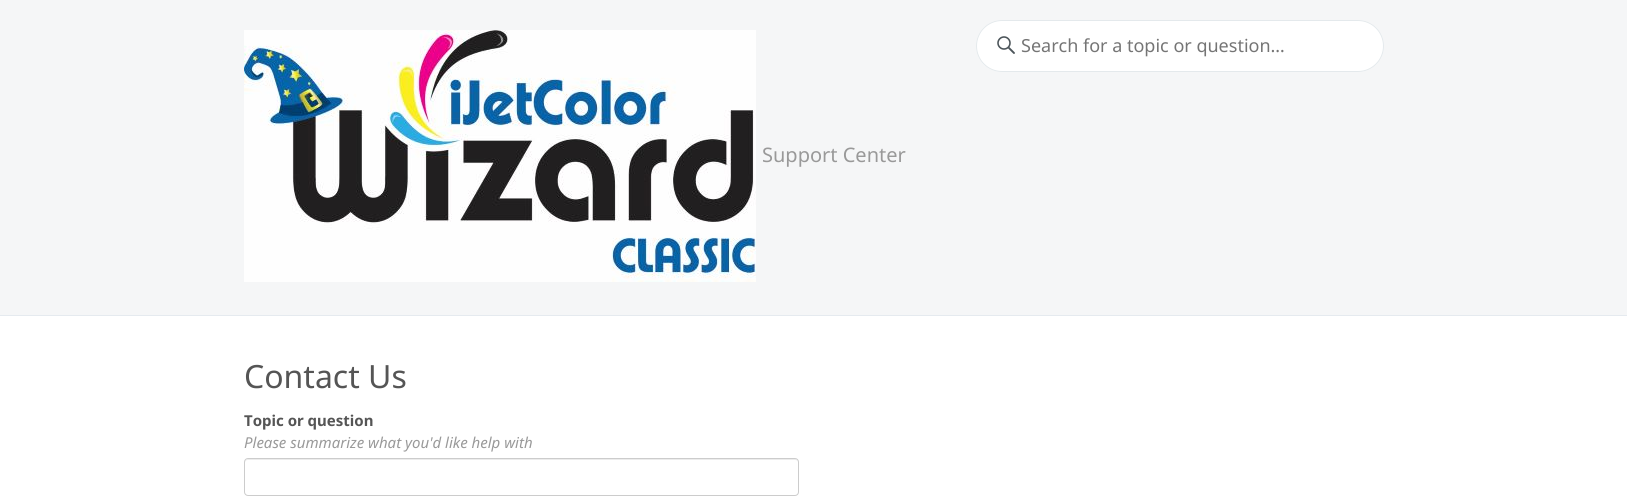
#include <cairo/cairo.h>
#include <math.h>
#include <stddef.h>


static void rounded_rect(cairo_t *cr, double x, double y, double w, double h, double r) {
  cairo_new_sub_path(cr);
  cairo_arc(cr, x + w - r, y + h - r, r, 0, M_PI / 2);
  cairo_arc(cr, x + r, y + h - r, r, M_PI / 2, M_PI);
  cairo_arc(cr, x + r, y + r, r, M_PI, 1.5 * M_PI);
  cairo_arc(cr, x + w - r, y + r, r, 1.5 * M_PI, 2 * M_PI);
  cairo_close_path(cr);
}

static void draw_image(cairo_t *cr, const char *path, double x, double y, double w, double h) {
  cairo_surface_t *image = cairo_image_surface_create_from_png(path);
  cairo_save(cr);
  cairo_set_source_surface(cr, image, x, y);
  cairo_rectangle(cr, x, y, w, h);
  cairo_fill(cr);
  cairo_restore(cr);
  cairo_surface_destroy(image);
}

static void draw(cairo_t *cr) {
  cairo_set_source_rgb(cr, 1, 1, 1);
  cairo_paint(cr);
  cairo_set_source_rgb(cr, 245 / 255.0, 246 / 255.0, 247 / 255.0);
  cairo_rectangle(cr, 0, 0, 1627, 315);
  cairo_fill(cr);
  cairo_set_source_rgb(cr, 229 / 255.0, 234 / 255.0, 239 / 255.0);
  cairo_rectangle(cr, 0, 315, 1627, 1);
  cairo_fill(cr);
  cairo_set_source_rgb(cr, 1, 1, 1);
  rounded_rect(cr, 976, 20, 408, 52, 26);
  cairo_fill(cr);
  cairo_arc(cr, 1004, 43, 6, 0, 2 * M_PI);
  cairo_set_source_rgb(cr, 76 / 255.0, 85 / 255.0, 90 / 255.0);
  cairo_set_line_width(cr, 1.6);
  cairo_stroke(cr);
  cairo_new_path(cr);
  cairo_move_to(cr, 1014, 53);
  cairo_line_to(cr, 1009, 48);
  cairo_set_line_width(cr, 1.9);
  cairo_set_line_cap(cr, CAIRO_LINE_CAP_ROUND);
  cairo_stroke(cr);
  rounded_rect(cr, 976.5, 20.5, 407, 51, 25.5);
  cairo_set_source_rgb(cr, 228 / 255.0, 233 / 255.0, 236 / 255.0);
  cairo_set_line_width(cr, 1);
  cairo_set_line_cap(cr, CAIRO_LINE_CAP_BUTT);
  cairo_stroke(cr);
  draw_image(cr, "images/1.png", 244, 30, 512, 252);
  cairo_set_source_rgb(cr, 236 / 255.0, 236 / 255.0, 236 / 255.0);
  cairo_new_path(cr);
  cairo_move_to(cr, 248, 460);
  cairo_line_to(cr, 795, 460);
  cairo_curve_to(cr, 797, 460, 798, 461, 798, 463);
  cairo_curve_to(cr, 798, 461, 797, 459, 795, 459);
  cairo_line_to(cr, 248, 459);
  cairo_line_to(cr, 246, 460);
  cairo_line_to(cr, 245, 461);
  cairo_line_to(cr, 245, 463);
  cairo_curve_to(cr, 245, 461, 246, 460, 248, 460);
  cairo_close_path(cr);
  cairo_fill(cr);
  rounded_rect(cr, 244.5, 458.5, 554, 37, 3.5);
  cairo_set_source_rgb(cr, 204 / 255.0, 204 / 255.0, 204 / 255.0);
  cairo_stroke(cr);
  cairo_select_font_face(cr, "Noto Sans", CAIRO_FONT_SLANT_NORMAL, CAIRO_FONT_WEIGHT_NORMAL);
  cairo_set_font_size(cr, 18);
  cairo_set_source_rgb(cr, 117 / 255.0, 117 / 255.0, 117 / 255.0);
  cairo_move_to(cr, 1021, 52);
  cairo_show_text(cr, "Search for a topic or question…");
  cairo_set_font_size(cr, 20);
  cairo_set_source_rgb(cr, 153 / 255.0, 153 / 255.0, 153 / 255.0);
  cairo_move_to(cr, 762, 162);
  cairo_show_text(cr, "Support Center");
  cairo_set_font_size(cr, 32);
  cairo_set_source_rgb(cr, 85 / 255.0, 85 / 255.0, 85 / 255.0);
  cairo_move_to(cr, 244, 388);
  cairo_show_text(cr, "Contact Us");
  cairo_select_font_face(cr, "Noto Sans", CAIRO_FONT_SLANT_NORMAL, CAIRO_FONT_WEIGHT_BOLD);
  cairo_set_font_size(cr, 15);
  cairo_move_to(cr, 244, 426);
  cairo_show_text(cr, "Topic or question");
  cairo_select_font_face(cr, "Noto Sans", CAIRO_FONT_SLANT_ITALIC, CAIRO_FONT_WEIGHT_NORMAL);
  cairo_set_source_rgb(cr, 153 / 255.0, 153 / 255.0, 153 / 255.0);
  cairo_move_to(cr, 244, 448);
  cairo_show_text(cr, "Please summarize what you'd like help with");
}

int main(void) {
  cairo_surface_t *surface = cairo_image_surface_create(CAIRO_FORMAT_RGB24, 1627, 499);
  cairo_t *cr = cairo_create(surface);
  cairo_font_options_t *options = cairo_font_options_create();
  cairo_font_options_set_hint_metrics(options, CAIRO_HINT_METRICS_OFF);
  cairo_font_options_set_hint_style(options, CAIRO_HINT_STYLE_NONE);
  cairo_set_font_options(cr, options);
  cairo_set_miter_limit(cr, 4);
  draw(cr);
  cairo_surface_write_to_png(surface, "out.png");
  cairo_font_options_destroy(options);
  cairo_destroy(cr);
  cairo_surface_destroy(surface);
  return 0;
}
